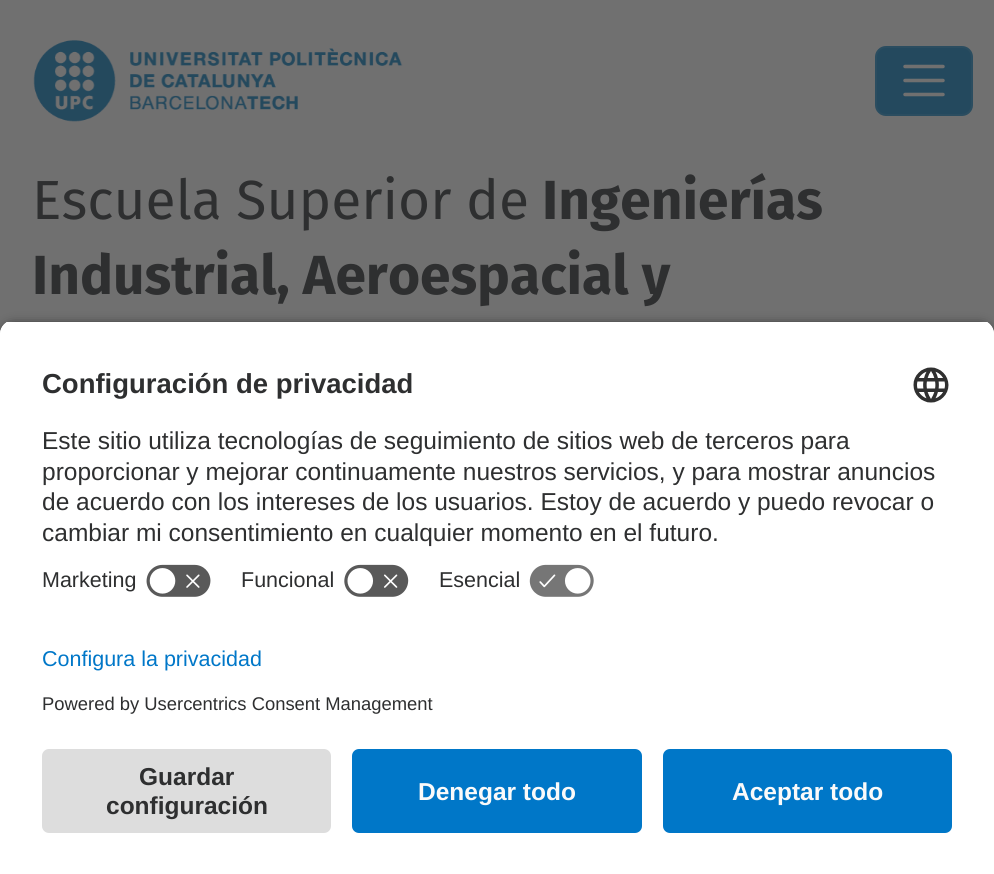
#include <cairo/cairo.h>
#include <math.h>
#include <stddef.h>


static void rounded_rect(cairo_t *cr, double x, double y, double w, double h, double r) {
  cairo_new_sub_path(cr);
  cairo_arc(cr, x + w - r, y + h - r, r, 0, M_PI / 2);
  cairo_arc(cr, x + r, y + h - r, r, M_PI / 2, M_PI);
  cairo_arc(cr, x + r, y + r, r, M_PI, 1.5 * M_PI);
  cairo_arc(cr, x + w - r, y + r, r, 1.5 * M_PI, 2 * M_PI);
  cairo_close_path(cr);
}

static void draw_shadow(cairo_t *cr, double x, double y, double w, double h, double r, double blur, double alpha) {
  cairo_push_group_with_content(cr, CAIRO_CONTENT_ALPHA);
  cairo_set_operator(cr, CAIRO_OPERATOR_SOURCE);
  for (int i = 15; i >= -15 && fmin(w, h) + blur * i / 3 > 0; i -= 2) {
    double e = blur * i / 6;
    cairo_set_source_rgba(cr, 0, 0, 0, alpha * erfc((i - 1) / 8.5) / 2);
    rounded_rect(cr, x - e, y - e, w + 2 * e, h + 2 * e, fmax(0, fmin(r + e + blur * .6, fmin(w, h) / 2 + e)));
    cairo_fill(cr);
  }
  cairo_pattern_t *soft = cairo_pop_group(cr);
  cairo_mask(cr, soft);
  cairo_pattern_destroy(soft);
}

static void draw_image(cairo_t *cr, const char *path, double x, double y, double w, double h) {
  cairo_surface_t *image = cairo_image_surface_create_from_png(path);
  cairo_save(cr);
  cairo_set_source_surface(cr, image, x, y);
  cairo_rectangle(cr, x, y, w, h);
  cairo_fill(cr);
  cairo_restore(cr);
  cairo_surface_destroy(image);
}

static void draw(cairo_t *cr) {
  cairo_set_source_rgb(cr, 112 / 255.0, 112 / 255.0, 112 / 255.0);
  cairo_paint(cr);
  draw_image(cr, "images/1.png", 33, 40, 370, 82);
  cairo_set_source_rgb(cr, 36 / 255.0, 73 / 255.0, 94 / 255.0);
  rounded_rect(cr, 875, 46, 98, 70, 11);
  cairo_fill(cr);
  rounded_rect(cr, 876, 47, 96, 68, 10);
  cairo_set_source_rgba(cr, 112 / 255.0, 112 / 255.0, 112 / 255.0, 0.1);
  cairo_stroke(cr);
  cairo_new_path(cr);
  cairo_move_to(cr, 905, 66.5);
  cairo_line_to(cr, 943, 66.5);
  cairo_move_to(cr, 905, 80.5);
  cairo_line_to(cr, 943, 80.5);
  cairo_move_to(cr, 905, 94.5);
  cairo_line_to(cr, 943, 94.5);
  cairo_set_source_rgb(cr, 112 / 255.0, 112 / 255.0, 112 / 255.0);
  cairo_set_line_width(cr, 3.5);
  cairo_set_line_cap(cr, CAIRO_LINE_CAP_ROUND);
  cairo_stroke(cr);
  cairo_set_source_rgb(cr, 0, 0, 0);
  draw_shadow(cr, 0, 326, 994, 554, 14, 6, 0.8);
  cairo_save(cr);
  cairo_new_path(cr);
  cairo_move_to(cr, 14, 320);
  cairo_line_to(cr, 980, 320);
  cairo_curve_to(cr, 987.5, 320, 994, 326.5, 994, 334);
  cairo_line_to(cr, 994, 627);
  cairo_line_to(cr, 0, 627);
  cairo_line_to(cr, 0, 334);
  cairo_curve_to(cr, 0, 326.5, 6.5, 320, 14, 320);
  cairo_close_path(cr);
  cairo_clip(cr);
  cairo_set_source_rgb(cr, 1, 1, 1);
  cairo_rectangle(cr, 0, 322, 994, 305);
  cairo_fill(cr);
  cairo_rectangle(cr, 0, 322, 994, 235);
  cairo_fill(cr);
  cairo_restore(cr);
  draw_image(cr, "images/2.png", 913, 367, 36, 36);
  draw_image(cr, "images/3.png", 146, 564, 65, 33);
  draw_image(cr, "images/4.png", 344, 564, 65, 33);
  draw_image(cr, "images/5.png", 529, 564, 65, 33);
  cairo_set_source_rgb(cr, 1, 1, 1);
  cairo_rectangle(cr, 0, 627, 994, 247);
  cairo_fill(cr);
  cairo_set_source_rgb(cr, 221 / 255.0, 221 / 255.0, 221 / 255.0);
  rounded_rect(cr, 42, 749, 289, 84, 7);
  cairo_fill(cr);
  cairo_set_source_rgb(cr, 0, 119 / 255.0, 200 / 255.0);
  rounded_rect(cr, 352, 749, 290, 84, 7);
  cairo_fill(cr);
  rounded_rect(cr, 663, 749, 289, 84, 7);
  cairo_fill(cr);
  cairo_select_font_face(cr, "Fira Sans", CAIRO_FONT_SLANT_NORMAL, CAIRO_FONT_WEIGHT_NORMAL);
  cairo_set_font_size(cr, 55.1);
  cairo_set_source_rgb(cr, 46 / 255.0, 47 / 255.0, 48 / 255.0);
  cairo_move_to(cr, 32, 219);
  cairo_show_text(cr, "Escuela Superior de");
  cairo_select_font_face(cr, "Fira Sans", CAIRO_FONT_SLANT_NORMAL, CAIRO_FONT_WEIGHT_BOLD);
  cairo_move_to(cr, 542, 219);
  cairo_show_text(cr, "Ingenierías");
  cairo_move_to(cr, 32, 294);
  cairo_show_text(cr, "Industrial, Aeroespacial y");
  cairo_select_font_face(cr, "Liberation Sans", CAIRO_FONT_SLANT_NORMAL, CAIRO_FONT_WEIGHT_BOLD);
  cairo_set_font_size(cr, 27.5);
  cairo_move_to(cr, 42, 393);
  cairo_show_text(cr, "Configuración de privacidad");
  cairo_select_font_face(cr, "Liberation Sans", CAIRO_FONT_SLANT_NORMAL, CAIRO_FONT_WEIGHT_NORMAL);
  cairo_set_font_size(cr, 24.5);
  cairo_move_to(cr, 42, 449);
  cairo_show_text(cr, "Este sitio utiliza tecnologías de seguimiento de sitios web de terceros para");
  cairo_move_to(cr, 42, 480);
  cairo_show_text(cr, "proporcionar y mejorar continuamente nuestros servicios, y para mostrar anuncios");
  cairo_move_to(cr, 42, 510);
  cairo_show_text(cr, "de acuerdo con los intereses de los usuarios. Estoy de acuerdo y puedo revocar o");
  cairo_move_to(cr, 42, 541);
  cairo_show_text(cr, "cambiar mi consentimiento en cualquier momento en el futuro.");
  cairo_set_font_size(cr, 21.5);
  cairo_move_to(cr, 42, 587);
  cairo_show_text(cr, "Marketing");
  cairo_move_to(cr, 241, 587);
  cairo_show_text(cr, "Funcional");
  cairo_move_to(cr, 439, 587);
  cairo_show_text(cr, "Esencial");
  cairo_set_source_rgb(cr, 0, 119 / 255.0, 200 / 255.0);
  cairo_move_to(cr, 42, 666);
  cairo_show_text(cr, "Configura la privacidad");
  cairo_set_font_size(cr, 18.4);
  cairo_set_source_rgb(cr, 46 / 255.0, 47 / 255.0, 48 / 255.0);
  cairo_move_to(cr, 42, 710);
  cairo_show_text(cr, "Powered by Usercentrics Consent Management");
  cairo_select_font_face(cr, "Liberation Sans", CAIRO_FONT_SLANT_NORMAL, CAIRO_FONT_WEIGHT_BOLD);
  cairo_set_font_size(cr, 24.5);
  cairo_move_to(cr, 139, 785);
  cairo_show_text(cr, "Guardar");
  cairo_move_to(cr, 106, 814);
  cairo_show_text(cr, "configuración");
  cairo_set_source_rgb(cr, 250 / 255.0, 250 / 255.0, 250 / 255.0);
  cairo_move_to(cr, 418, 800);
  cairo_show_text(cr, "Denegar todo");
  cairo_move_to(cr, 732, 800);
  cairo_show_text(cr, "Aceptar todo");
}

int main(void) {
  cairo_surface_t *surface = cairo_image_surface_create(CAIRO_FORMAT_RGB24, 994, 874);
  cairo_t *cr = cairo_create(surface);
  cairo_font_options_t *options = cairo_font_options_create();
  cairo_font_options_set_hint_metrics(options, CAIRO_HINT_METRICS_OFF);
  cairo_font_options_set_hint_style(options, CAIRO_HINT_STYLE_NONE);
  cairo_set_font_options(cr, options);
  cairo_set_miter_limit(cr, 4);
  draw(cr);
  cairo_surface_write_to_png(surface, "out.png");
  cairo_font_options_destroy(options);
  cairo_destroy(cr);
  cairo_surface_destroy(surface);
  return 0;
}
